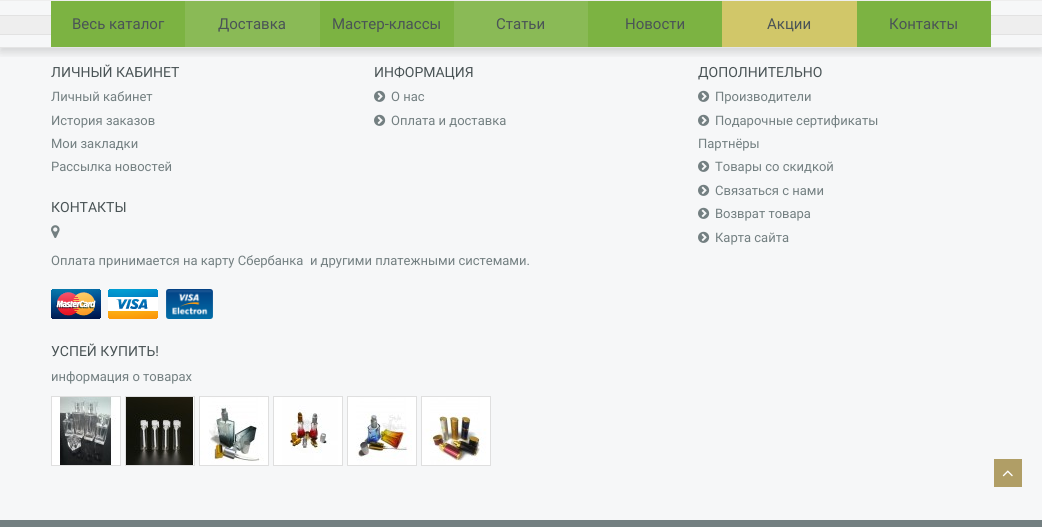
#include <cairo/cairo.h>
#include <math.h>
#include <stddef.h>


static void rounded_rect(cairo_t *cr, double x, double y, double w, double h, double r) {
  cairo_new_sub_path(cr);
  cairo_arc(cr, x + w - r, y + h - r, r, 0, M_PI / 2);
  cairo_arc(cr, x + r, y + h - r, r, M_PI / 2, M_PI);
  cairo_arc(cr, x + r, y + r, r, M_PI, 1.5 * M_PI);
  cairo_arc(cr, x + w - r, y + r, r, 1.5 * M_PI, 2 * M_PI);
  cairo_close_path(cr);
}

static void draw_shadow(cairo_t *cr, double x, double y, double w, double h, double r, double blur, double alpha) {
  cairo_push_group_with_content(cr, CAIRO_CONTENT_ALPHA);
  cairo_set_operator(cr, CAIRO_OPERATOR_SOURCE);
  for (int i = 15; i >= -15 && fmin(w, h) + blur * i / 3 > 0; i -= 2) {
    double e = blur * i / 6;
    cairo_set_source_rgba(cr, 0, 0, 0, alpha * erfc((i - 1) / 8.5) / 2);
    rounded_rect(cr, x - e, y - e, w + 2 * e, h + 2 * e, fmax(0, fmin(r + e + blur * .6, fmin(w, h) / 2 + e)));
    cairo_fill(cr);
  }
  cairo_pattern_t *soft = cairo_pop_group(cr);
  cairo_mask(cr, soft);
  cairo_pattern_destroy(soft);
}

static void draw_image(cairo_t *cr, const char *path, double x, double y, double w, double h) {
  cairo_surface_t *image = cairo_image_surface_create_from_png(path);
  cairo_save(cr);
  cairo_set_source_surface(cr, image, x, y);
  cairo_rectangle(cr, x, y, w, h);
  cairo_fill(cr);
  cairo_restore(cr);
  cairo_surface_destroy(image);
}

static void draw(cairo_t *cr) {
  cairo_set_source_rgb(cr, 246 / 255.0, 247 / 255.0, 248 / 255.0);
  cairo_paint(cr);
  cairo_set_source_rgb(cr, 238 / 255.0, 238 / 255.0, 238 / 255.0);
  cairo_rectangle(cr, 0, 16, 1042, 18);
  cairo_fill(cr);
  cairo_set_source_rgb(cr, 226 / 255.0, 226 / 255.0, 226 / 255.0);
  cairo_rectangle(cr, 0, 15, 1042, 1);
  cairo_fill(cr);
  cairo_rectangle(cr, 0, 34, 1042, 1);
  cairo_fill(cr);
  cairo_save(cr);
  cairo_rectangle(cr, 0, 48, 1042, 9);
  cairo_clip(cr);
  cairo_set_source_rgb(cr, 0, 0, 0);
  draw_shadow(cr, 0, 4, 1042, 48, 0, 4.5, 0.15);
  cairo_restore(cr);
  cairo_set_source_rgb(cr, 238 / 255.0, 238 / 255.0, 238 / 255.0);
  cairo_rectangle(cr, 0, 0, 1042, 1);
  cairo_fill(cr);
  cairo_set_source_rgb(cr, 228 / 255.0, 228 / 255.0, 228 / 255.0);
  cairo_rectangle(cr, 0, 47, 1042, 1);
  cairo_fill(cr);
  cairo_set_source_rgb(cr, 124 / 255.0, 179 / 255.0, 66 / 255.0);
  cairo_rectangle(cr, 51, 1, 134, 46);
  cairo_fill(cr);
  cairo_set_source_rgb(cr, 138 / 255.0, 186 / 255.0, 86 / 255.0);
  cairo_rectangle(cr, 185, 1, 135, 46);
  cairo_fill(cr);
  cairo_set_source_rgb(cr, 124 / 255.0, 179 / 255.0, 66 / 255.0);
  cairo_rectangle(cr, 320, 1, 134, 46);
  cairo_fill(cr);
  cairo_set_source_rgb(cr, 138 / 255.0, 186 / 255.0, 86 / 255.0);
  cairo_rectangle(cr, 454, 1, 134, 46);
  cairo_fill(cr);
  cairo_set_source_rgb(cr, 124 / 255.0, 179 / 255.0, 66 / 255.0);
  cairo_rectangle(cr, 588, 1, 134, 46);
  cairo_fill(cr);
  cairo_set_source_rgb(cr, 209 / 255.0, 199 / 255.0, 105 / 255.0);
  cairo_rectangle(cr, 722, 1, 135, 46);
  cairo_fill(cr);
  cairo_set_source_rgb(cr, 124 / 255.0, 179 / 255.0, 66 / 255.0);
  cairo_rectangle(cr, 857, 1, 134, 46);
  cairo_fill(cr);
  draw_image(cr, "images/1.png", 51, 225, 9, 13);
  draw_image(cr, "images/2.png", 374, 90, 12, 12);
  draw_image(cr, "images/2.png", 374, 114, 12, 12);
  draw_image(cr, "images/2.png", 698, 90, 12, 12);
  draw_image(cr, "images/2.png", 698, 114, 12, 12);
  draw_image(cr, "images/2.png", 698, 160, 12, 12);
  draw_image(cr, "images/2.png", 698, 184, 12, 12);
  draw_image(cr, "images/2.png", 698, 207, 12, 12);
  draw_image(cr, "images/2.png", 698, 231, 12, 12);
  draw_image(cr, "images/3.png", 51, 289, 50, 30);
  draw_image(cr, "images/4.png", 108, 289, 50, 30);
  draw_image(cr, "images/5.png", 166, 289, 47, 30);
  cairo_rectangle(cr, 51.5, 396.5, 69, 69);
  cairo_set_source_rgb(cr, 223 / 255.0, 223 / 255.0, 223 / 255.0);
  cairo_set_line_width(cr, 1);
  cairo_stroke(cr);
  draw_image(cr, "images/6.png", 52, 397, 68, 68);
  cairo_rectangle(cr, 125.5, 396.5, 69, 69);
  cairo_stroke(cr);
  draw_image(cr, "images/7.png", 126, 397, 68, 68);
  cairo_rectangle(cr, 199.5, 396.5, 69, 69);
  cairo_stroke(cr);
  draw_image(cr, "images/8.png", 200, 397, 68, 68);
  cairo_rectangle(cr, 273.5, 396.5, 69, 69);
  cairo_stroke(cr);
  draw_image(cr, "images/9.png", 274, 397, 68, 68);
  cairo_rectangle(cr, 347.5, 396.5, 69, 69);
  cairo_stroke(cr);
  draw_image(cr, "images/10.png", 348, 397, 68, 68);
  cairo_rectangle(cr, 421.5, 396.5, 69, 69);
  cairo_stroke(cr);
  draw_image(cr, "images/11.png", 422, 397, 68, 68);
  cairo_set_source_rgb(cr, 115 / 255.0, 127 / 255.0, 129 / 255.0);
  cairo_rectangle(cr, 0, 520, 1042, 7);
  cairo_fill(cr);
  cairo_set_source_rgb(cr, 176 / 255.0, 158 / 255.0, 102 / 255.0);
  cairo_rectangle(cr, 994, 459, 28, 28);
  cairo_fill(cr);
  draw_image(cr, "images/12.png", 1002, 470, 11, 7);
  cairo_select_font_face(cr, "Roboto", CAIRO_FONT_SLANT_NORMAL, CAIRO_FONT_WEIGHT_NORMAL);
  cairo_set_font_size(cr, 15);
  cairo_set_source_rgb(cr, 74 / 255.0, 84 / 255.0, 86 / 255.0);
  cairo_move_to(cr, 72, 29);
  cairo_show_text(cr, "Весь каталог");
  cairo_move_to(cr, 218, 29);
  cairo_show_text(cr, "Доставка");
  cairo_move_to(cr, 332, 29);
  cairo_show_text(cr, "Мастер-классы");
  cairo_move_to(cr, 496, 29);
  cairo_show_text(cr, "Статьи");
  cairo_move_to(cr, 625, 29);
  cairo_show_text(cr, "Новости");
  cairo_move_to(cr, 767, 29);
  cairo_show_text(cr, "Акции");
  cairo_move_to(cr, 889, 29);
  cairo_show_text(cr, "Контакты");
  cairo_set_font_size(cr, 14);
  cairo_move_to(cr, 51, 77);
  cairo_show_text(cr, "ЛИЧНЫЙ КАБИНЕТ");
  cairo_set_font_size(cr, 13);
  cairo_set_source_rgb(cr, 115 / 255.0, 127 / 255.0, 129 / 255.0);
  cairo_move_to(cr, 51, 101);
  cairo_show_text(cr, "Личный кабинет");
  cairo_move_to(cr, 51, 125);
  cairo_show_text(cr, "История заказов");
  cairo_move_to(cr, 51, 148);
  cairo_show_text(cr, "Мои закладки");
  cairo_move_to(cr, 51, 171);
  cairo_show_text(cr, "Рассылка новостей");
  cairo_set_font_size(cr, 14);
  cairo_set_source_rgb(cr, 74 / 255.0, 84 / 255.0, 86 / 255.0);
  cairo_move_to(cr, 51, 212);
  cairo_show_text(cr, "КОНТАКТЫ");
  cairo_move_to(cr, 374, 77);
  cairo_show_text(cr, "ИНФОРМАЦИЯ");
  cairo_set_font_size(cr, 13);
  cairo_set_source_rgb(cr, 115 / 255.0, 127 / 255.0, 129 / 255.0);
  cairo_move_to(cr, 391, 101);
  cairo_show_text(cr, "О нас");
  cairo_move_to(cr, 391, 125);
  cairo_show_text(cr, "Оплата и доставка");
  cairo_set_font_size(cr, 14);
  cairo_set_source_rgb(cr, 74 / 255.0, 84 / 255.0, 86 / 255.0);
  cairo_move_to(cr, 698, 77);
  cairo_show_text(cr, "ДОПОЛНИТЕЛЬНО");
  cairo_set_font_size(cr, 13);
  cairo_set_source_rgb(cr, 115 / 255.0, 127 / 255.0, 129 / 255.0);
  cairo_move_to(cr, 715, 101);
  cairo_show_text(cr, "Производители");
  cairo_move_to(cr, 715, 125);
  cairo_show_text(cr, "Подарочные сертификаты");
  cairo_move_to(cr, 698, 148);
  cairo_show_text(cr, "Партнёры");
  cairo_move_to(cr, 715, 171);
  cairo_show_text(cr, "Товары со скидкой");
  cairo_move_to(cr, 715, 195);
  cairo_show_text(cr, "Связаться с нами");
  cairo_move_to(cr, 715, 218);
  cairo_show_text(cr, "Возврат товара");
  cairo_move_to(cr, 715, 242);
  cairo_show_text(cr, "Карта сайта");
  cairo_move_to(cr, 51, 265);
  cairo_show_text(cr, "Оплата принимается на карту Сбербанка  и другими платежными системами.");
  cairo_set_font_size(cr, 14);
  cairo_set_source_rgb(cr, 74 / 255.0, 84 / 255.0, 86 / 255.0);
  cairo_move_to(cr, 51, 356);
  cairo_show_text(cr, "УСПЕЙ КУПИТЬ!");
  cairo_set_font_size(cr, 13);
  cairo_set_source_rgb(cr, 115 / 255.0, 127 / 255.0, 129 / 255.0);
  cairo_move_to(cr, 51, 381);
  cairo_show_text(cr, "информация о товарах");
}

int main(void) {
  cairo_surface_t *surface = cairo_image_surface_create(CAIRO_FORMAT_RGB24, 1042, 527);
  cairo_t *cr = cairo_create(surface);
  cairo_font_options_t *options = cairo_font_options_create();
  cairo_font_options_set_hint_metrics(options, CAIRO_HINT_METRICS_OFF);
  cairo_font_options_set_hint_style(options, CAIRO_HINT_STYLE_NONE);
  cairo_set_font_options(cr, options);
  cairo_set_miter_limit(cr, 4);
  draw(cr);
  cairo_surface_write_to_png(surface, "out.png");
  cairo_font_options_destroy(options);
  cairo_destroy(cr);
  cairo_surface_destroy(surface);
  return 0;
}
